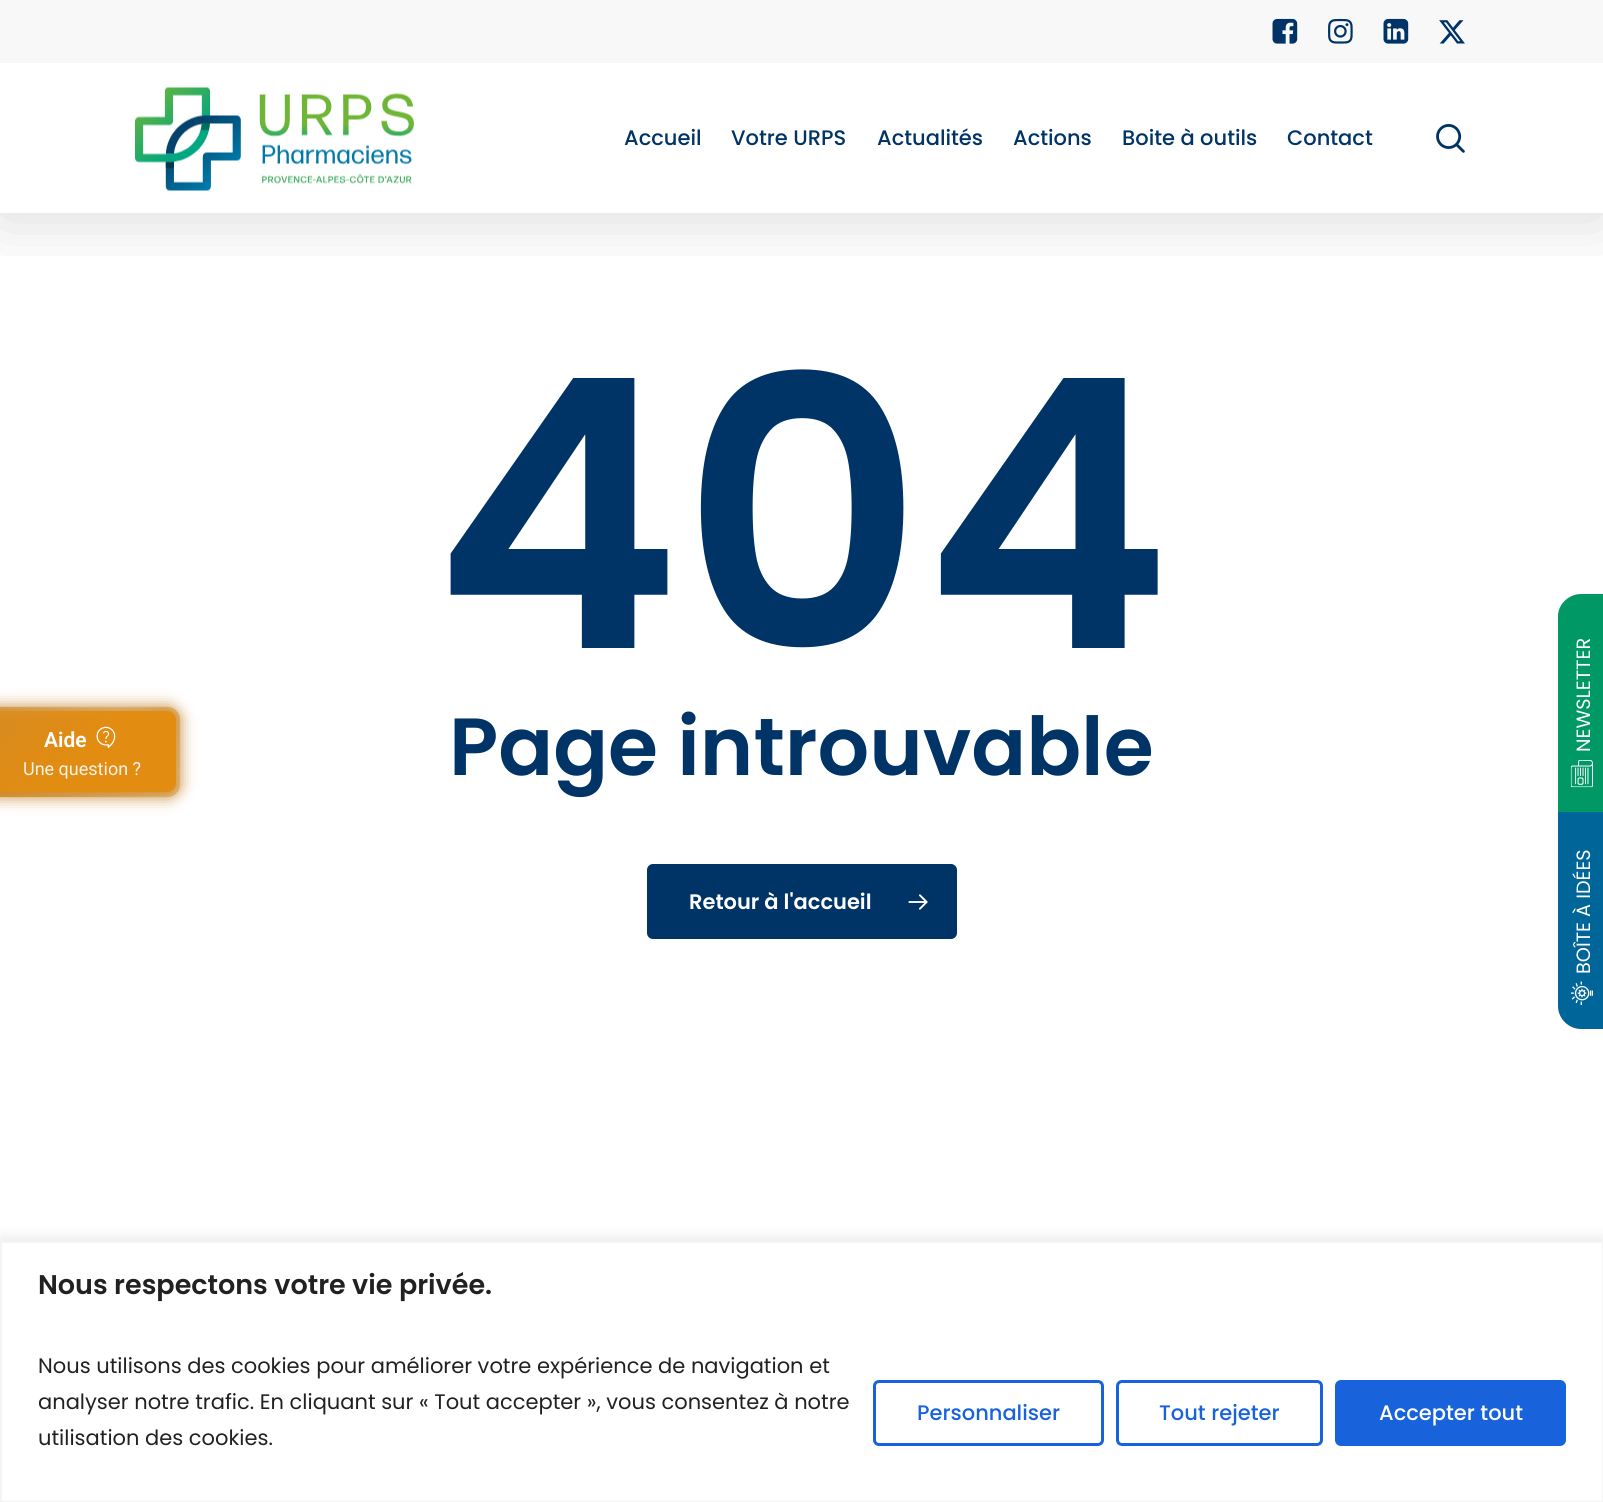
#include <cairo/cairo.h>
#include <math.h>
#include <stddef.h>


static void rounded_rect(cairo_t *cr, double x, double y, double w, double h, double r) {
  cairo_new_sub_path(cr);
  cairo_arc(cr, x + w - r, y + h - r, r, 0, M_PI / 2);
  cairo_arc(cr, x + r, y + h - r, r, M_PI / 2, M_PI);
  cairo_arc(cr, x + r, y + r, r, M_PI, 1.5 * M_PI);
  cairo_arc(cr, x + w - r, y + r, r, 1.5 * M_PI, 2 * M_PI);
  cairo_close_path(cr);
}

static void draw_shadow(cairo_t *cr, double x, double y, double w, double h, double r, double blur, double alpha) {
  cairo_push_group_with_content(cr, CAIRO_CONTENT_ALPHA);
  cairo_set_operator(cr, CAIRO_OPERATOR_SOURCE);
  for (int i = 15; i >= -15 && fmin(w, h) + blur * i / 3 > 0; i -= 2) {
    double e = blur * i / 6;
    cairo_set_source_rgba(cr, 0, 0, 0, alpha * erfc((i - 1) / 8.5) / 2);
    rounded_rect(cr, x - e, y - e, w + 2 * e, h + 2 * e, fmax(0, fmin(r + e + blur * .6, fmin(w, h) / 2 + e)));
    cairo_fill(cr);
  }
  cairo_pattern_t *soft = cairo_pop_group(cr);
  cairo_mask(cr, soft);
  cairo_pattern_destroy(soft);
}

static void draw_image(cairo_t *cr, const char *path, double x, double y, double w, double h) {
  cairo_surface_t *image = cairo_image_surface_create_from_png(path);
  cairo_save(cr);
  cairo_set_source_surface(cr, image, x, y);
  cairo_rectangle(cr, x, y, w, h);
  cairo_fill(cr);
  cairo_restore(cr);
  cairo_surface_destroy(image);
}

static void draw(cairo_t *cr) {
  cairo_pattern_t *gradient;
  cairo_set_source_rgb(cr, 1, 1, 1);
  cairo_paint(cr);
  gradient = cairo_pattern_create_linear(158, 969, 593, 534);
  cairo_pattern_add_color_stop_rgba(gradient, 0, 226 / 255.0, 140 / 255.0, 17 / 255.0, 1);
  cairo_pattern_add_color_stop_rgba(gradient, 0.25, 245 / 255.0, 217 / 255.0, 176 / 255.0, 1);
  cairo_pattern_add_color_stop_rgba(gradient, 0.5, 226 / 255.0, 140 / 255.0, 17 / 255.0, 1);
  cairo_pattern_add_color_stop_rgba(gradient, 0.75, 90 / 255.0, 56 / 255.0, 7 / 255.0, 1);
  cairo_pattern_add_color_stop_rgba(gradient, 1, 226 / 255.0, 140 / 255.0, 17 / 255.0, 1);
  cairo_set_source(cr, gradient);
  cairo_pattern_destroy(gradient);
  cairo_new_path(cr);
  cairo_move_to(cr, -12, 707);
  cairo_line_to(cr, 168, 707);
  cairo_curve_to(cr, 174.5, 707, 180, 712.5, 180, 719);
  cairo_line_to(cr, 180, 785);
  cairo_curve_to(cr, 180, 791.5, 174.5, 797, 168, 797);
  cairo_line_to(cr, -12, 797);
  cairo_close_path(cr);
  cairo_fill(cr);
  cairo_set_source_rgb(cr, 197 / 255.0, 138 / 255.0, 54 / 255.0);
  draw_shadow(cr, -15, 707, 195, 90, 12, 7.5, 1);
  gradient = cairo_pattern_create_linear(16, 685, 149, 818);
  cairo_pattern_add_color_stop_rgba(gradient, 0, 226 / 255.0, 140 / 255.0, 17 / 255.0, 0.6);
  cairo_pattern_add_color_stop_rgba(gradient, 0.5, 226 / 255.0, 140 / 255.0, 17 / 255.0, 1);
  cairo_set_source(cr, gradient);
  cairo_pattern_destroy(gradient);
  cairo_new_path(cr);
  cairo_move_to(cr, -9, 711);
  cairo_line_to(cr, 167, 711);
  cairo_curve_to(cr, 172, 711, 176, 715, 176, 720);
  cairo_line_to(cr, 176, 783);
  cairo_curve_to(cr, 176, 788, 172, 792, 167, 792);
  cairo_line_to(cr, -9, 792);
  cairo_close_path(cr);
  cairo_fill(cr);
  draw_image(cr, "images/1.png", 96, 726, 20, 23);
  cairo_save(cr);
  cairo_rectangle(cr, 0, 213, 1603, 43);
  cairo_clip(cr);
  cairo_set_source_rgb(cr, 0, 0, 0);
  draw_shadow(cr, 0, 5, 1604, 213, 0, 34, 0.15);
  cairo_restore(cr);
  cairo_set_source_rgb(cr, 248 / 255.0, 248 / 255.0, 248 / 255.0);
  cairo_rectangle(cr, 0, 0, 1603, 63);
  cairo_fill(cr);
  draw_image(cr, "images/2.png", 1272, 18, 26, 26);
  draw_image(cr, "images/3.png", 1328, 18, 25, 26);
  draw_image(cr, "images/4.png", 1383, 18, 26, 26);
  draw_image(cr, "images/5.png", 1439, 20, 26, 24);
  draw_image(cr, "images/6.png", 135, 87, 279, 104);
  draw_image(cr, "images/7.png", 1436, 124, 29, 29);
  cairo_set_source_rgb(cr, 0, 51 / 255.0, 102 / 255.0);
  rounded_rect(cr, 647, 864, 310, 75, 6);
  cairo_fill(cr);
  draw_image(cr, "images/8.png", 908, 894, 20, 16);
  cairo_set_source_rgb(cr, 0, 153 / 255.0, 102 / 255.0);
  cairo_new_path(cr);
  cairo_move_to(cr, 1558, 812);
  cairo_line_to(cr, 1558, 616);
  cairo_curve_to(cr, 1558, 604, 1569, 594, 1581, 594);
  cairo_line_to(cr, 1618, 594);
  cairo_line_to(cr, 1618, 812);
  cairo_close_path(cr);
  cairo_fill(cr);
  draw_image(cr, "images/9.png", 1570, 760, 23, 28);
  cairo_set_source_rgb(cr, 0, 102 / 255.0, 153 / 255.0);
  cairo_new_path(cr);
  cairo_move_to(cr, 1558, 1006);
  cairo_line_to(cr, 1558, 812);
  cairo_line_to(cr, 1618, 812);
  cairo_line_to(cr, 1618, 1029);
  cairo_line_to(cr, 1581, 1029);
  cairo_curve_to(cr, 1569, 1029, 1558, 1019, 1558, 1006);
  cairo_close_path(cr);
  cairo_fill(cr);
  draw_image(cr, "images/10.png", 1570, 981, 23, 24);
  cairo_set_source_rgb(cr, 172 / 255.0, 171 / 255.0, 171 / 255.0);
  draw_shadow(cr, 0, 1239, 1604, 263, 0, 7.5, 0.3);
  cairo_set_source_rgb(cr, 1, 1, 1);
  cairo_rectangle(cr, 1, 1242, 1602, 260);
  cairo_fill_preserve(cr);
  cairo_set_source_rgb(cr, 244 / 255.0, 244 / 255.0, 244 / 255.0);
  cairo_stroke(cr);
  rounded_rect(cr, 874.5, 1381.5, 228, 63, 4.5);
  cairo_set_source_rgb(cr, 24 / 255.0, 99 / 255.0, 220 / 255.0);
  cairo_set_line_width(cr, 3);
  cairo_stroke(cr);
  rounded_rect(cr, 1117.5, 1381.5, 204, 63, 4.5);
  cairo_stroke(cr);
  rounded_rect(cr, 1336.5, 1381.5, 228, 63, 4.5);
  cairo_fill_preserve(cr);
  cairo_stroke(cr);
  cairo_select_font_face(cr, "Roboto SemiBold", CAIRO_FONT_SLANT_NORMAL, CAIRO_FONT_WEIGHT_NORMAL);
  cairo_set_font_size(cr, 21);
  cairo_set_source_rgb(cr, 1, 1, 1);
  cairo_move_to(cr, 44, 747);
  cairo_show_text(cr, "Aide");
  cairo_select_font_face(cr, "Roboto", CAIRO_FONT_SLANT_NORMAL, CAIRO_FONT_WEIGHT_NORMAL);
  cairo_set_font_size(cr, 18);
  cairo_set_source_rgb(cr, 252 / 255.0, 243 / 255.0, 231 / 255.0);
  cairo_move_to(cr, 23, 775);
  cairo_show_text(cr, "Une question ?");
  cairo_select_font_face(cr, "Poppins Medium", CAIRO_FONT_SLANT_NORMAL, CAIRO_FONT_WEIGHT_NORMAL);
  cairo_set_font_size(cr, 21);
  cairo_set_source_rgb(cr, 0, 51 / 255.0, 102 / 255.0);
  cairo_move_to(cr, 624, 145);
  cairo_show_text(cr, "Accueil");
  cairo_move_to(cr, 731, 145);
  cairo_show_text(cr, "Votre URPS");
  cairo_move_to(cr, 877, 145);
  cairo_show_text(cr, "Actualités");
  cairo_move_to(cr, 1013, 145);
  cairo_show_text(cr, "Actions");
  cairo_move_to(cr, 1122, 145);
  cairo_show_text(cr, "Boite à outils");
  cairo_move_to(cr, 1287, 145);
  cairo_show_text(cr, "Contact");
  cairo_select_font_face(cr, "Poppins SemiBold", CAIRO_FONT_SLANT_NORMAL, CAIRO_FONT_WEIGHT_NORMAL);
  cairo_set_font_size(cr, 375);
  cairo_move_to(cr, 433, 648);
  cairo_show_text(cr, "404");
  cairo_set_font_size(cr, 81);
  cairo_move_to(cr, 449, 775);
  cairo_show_text(cr, "Page introuvable");
  cairo_set_font_size(cr, 21);
  cairo_set_source_rgb(cr, 1, 1, 1);
  cairo_move_to(cr, 689, 909);
  cairo_show_text(cr, "Retour à l'accueil");
  cairo_select_font_face(cr, "Poppins", CAIRO_FONT_SLANT_NORMAL, CAIRO_FONT_WEIGHT_NORMAL);
  cairo_set_font_size(cr, 19.25);
  cairo_save(cr);
  cairo_translate(cr, 1590, 752);
  cairo_rotate(cr, -90 * M_PI / 180);
  cairo_move_to(cr, 0, 0);
  cairo_show_text(cr, "NEWSLETTER");
  cairo_restore(cr);
  cairo_save(cr);
  cairo_translate(cr, 1590, 974);
  cairo_rotate(cr, -90 * M_PI / 180);
  cairo_move_to(cr, 0, 0);
  cairo_show_text(cr, "BOÎTE À IDÉES");
  cairo_restore(cr);
  cairo_select_font_face(cr, "Poppins SemiBold", CAIRO_FONT_SLANT_NORMAL, CAIRO_FONT_WEIGHT_NORMAL);
  cairo_set_font_size(cr, 27);
  cairo_set_source_rgb(cr, 33 / 255.0, 33 / 255.0, 33 / 255.0);
  cairo_move_to(cr, 38, 1294);
  cairo_show_text(cr, "Nous respectons votre vie privée.");
  cairo_select_font_face(cr, "Poppins", CAIRO_FONT_SLANT_NORMAL, CAIRO_FONT_WEIGHT_NORMAL);
  cairo_set_font_size(cr, 21);
  cairo_move_to(cr, 38, 1373);
  cairo_show_text(cr, "Nous utilisons des cookies pour améliorer votre expérience de navigation et");
  cairo_move_to(cr, 38, 1409);
  cairo_show_text(cr, "analyser notre trafic. En cliquant sur « Tout accepter », vous consentez à notre");
  cairo_move_to(cr, 38, 1445);
  cairo_show_text(cr, "utilisation des cookies.");
  cairo_select_font_face(cr, "Poppins Medium", CAIRO_FONT_SLANT_NORMAL, CAIRO_FONT_WEIGHT_NORMAL);
  cairo_set_source_rgb(cr, 24 / 255.0, 99 / 255.0, 220 / 255.0);
  cairo_move_to(cr, 917, 1420);
  cairo_show_text(cr, "Personnaliser");
  cairo_move_to(cr, 1159, 1420);
  cairo_show_text(cr, "Tout rejeter");
  cairo_set_source_rgb(cr, 1, 1, 1);
  cairo_move_to(cr, 1379, 1420);
  cairo_show_text(cr, "Accepter tout");
}

int main(void) {
  cairo_surface_t *surface = cairo_image_surface_create(CAIRO_FORMAT_RGB24, 1603, 1502);
  cairo_t *cr = cairo_create(surface);
  cairo_font_options_t *options = cairo_font_options_create();
  cairo_font_options_set_hint_metrics(options, CAIRO_HINT_METRICS_OFF);
  cairo_font_options_set_hint_style(options, CAIRO_HINT_STYLE_NONE);
  cairo_set_font_options(cr, options);
  cairo_set_miter_limit(cr, 4);
  draw(cr);
  cairo_surface_write_to_png(surface, "out.png");
  cairo_font_options_destroy(options);
  cairo_destroy(cr);
  cairo_surface_destroy(surface);
  return 0;
}
